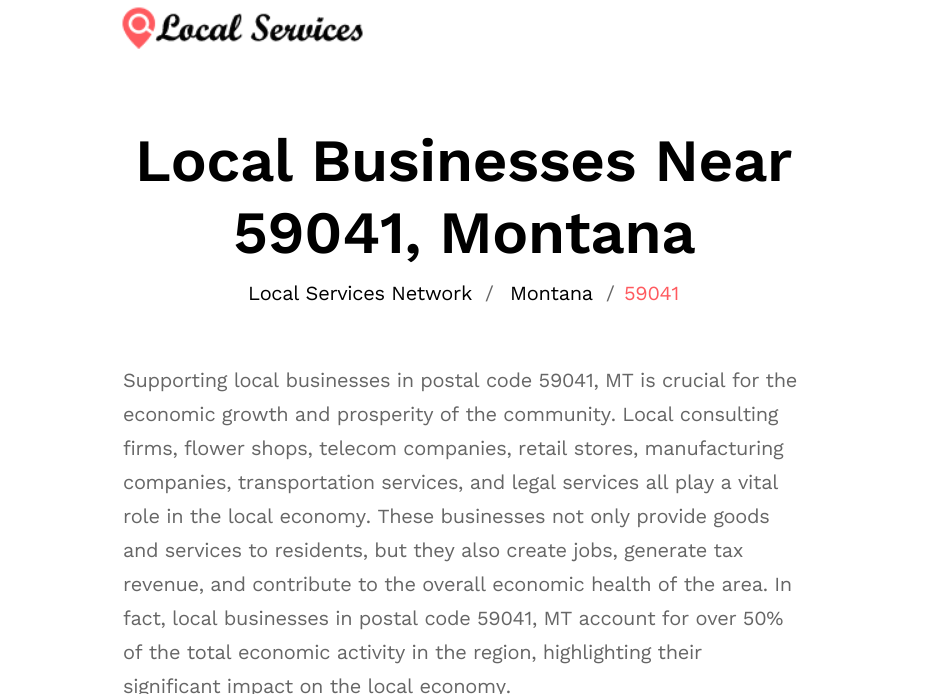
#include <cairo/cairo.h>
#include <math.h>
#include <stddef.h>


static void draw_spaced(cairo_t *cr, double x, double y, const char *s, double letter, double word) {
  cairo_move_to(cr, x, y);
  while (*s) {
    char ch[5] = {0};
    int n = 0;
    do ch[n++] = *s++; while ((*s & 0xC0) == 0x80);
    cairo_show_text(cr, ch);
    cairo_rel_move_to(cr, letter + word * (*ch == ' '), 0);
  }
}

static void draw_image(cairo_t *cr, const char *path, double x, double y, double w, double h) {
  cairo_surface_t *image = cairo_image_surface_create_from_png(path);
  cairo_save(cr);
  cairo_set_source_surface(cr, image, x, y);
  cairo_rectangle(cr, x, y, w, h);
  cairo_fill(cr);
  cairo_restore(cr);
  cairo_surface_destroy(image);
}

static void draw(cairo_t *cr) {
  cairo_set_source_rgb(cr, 1, 1, 1);
  cairo_paint(cr);
  draw_image(cr, "images/1.png", 122, 7, 241, 42);
  cairo_select_font_face(cr, "Work Sans SemiBold", CAIRO_FONT_SLANT_NORMAL, CAIRO_FONT_WEIGHT_NORMAL);
  cairo_set_font_size(cr, 60);
  cairo_set_source_rgb(cr, 0, 0, 0);
  draw_spaced(cr, 135, 181, "Local Businesses Near", -0.3, 0);
  draw_spaced(cr, 233, 253, "59041, Montana", -0.3, 0);
  cairo_select_font_face(cr, "Work Sans", CAIRO_FONT_SLANT_NORMAL, CAIRO_FONT_WEIGHT_NORMAL);
  cairo_set_font_size(cr, 20);
  draw_spaced(cr, 248, 300, "Local Services Network", -0.3, 0);
  cairo_set_source_rgb(cr, 102 / 255.0, 102 / 255.0, 102 / 255.0);
  draw_spaced(cr, 485, 300, "/", -0.3, 0);
  cairo_set_source_rgb(cr, 0, 0, 0);
  draw_spaced(cr, 510, 300, "Montana", -0.3, 0);
  cairo_set_source_rgb(cr, 102 / 255.0, 102 / 255.0, 102 / 255.0);
  draw_spaced(cr, 606, 300, "/", -0.3, 0);
  cairo_set_source_rgb(cr, 1, 90 / 255.0, 95 / 255.0);
  draw_spaced(cr, 624, 300, "59041", -0.3, 0);
  cairo_set_source_rgb(cr, 102 / 255.0, 102 / 255.0, 102 / 255.0);
  draw_spaced(cr, 123, 387, "Supporting local businesses in postal code 59041, MT is crucial for the", -0.3, 0);
  draw_spaced(cr, 123, 421, "economic growth and prosperity of the community. Local consulting", -0.3, 0);
  draw_spaced(cr, 123, 455, "firms, flower shops, telecom companies, retail stores, manufacturing", -0.3, 0);
  draw_spaced(cr, 123, 489, "companies, transportation services, and legal services all play a vital", -0.3, 0);
  draw_spaced(cr, 123, 523, "role in the local economy. These businesses not only provide goods", -0.3, 0);
  draw_spaced(cr, 123, 557, "and services to residents, but they also create jobs, generate tax", -0.3, 0);
  draw_spaced(cr, 123, 591, "revenue, and contribute to the overall economic health of the area. In", -0.3, 0);
  draw_spaced(cr, 123, 625, "fact, local businesses in postal code 59041, MT account for over 50%", -0.3, 0);
  draw_spaced(cr, 123, 659, "of the total economic activity in the region, highlighting their", -0.3, 0);
  draw_spaced(cr, 123, 693, "significant impact on the local economy.", -0.3, 0);
}

int main(void) {
  cairo_surface_t *surface = cairo_image_surface_create(CAIRO_FORMAT_RGB24, 927, 694);
  cairo_t *cr = cairo_create(surface);
  cairo_font_options_t *options = cairo_font_options_create();
  cairo_font_options_set_hint_metrics(options, CAIRO_HINT_METRICS_OFF);
  cairo_font_options_set_hint_style(options, CAIRO_HINT_STYLE_NONE);
  cairo_set_font_options(cr, options);
  cairo_set_miter_limit(cr, 4);
  draw(cr);
  cairo_surface_write_to_png(surface, "out.png");
  cairo_font_options_destroy(options);
  cairo_destroy(cr);
  cairo_surface_destroy(surface);
  return 0;
}
